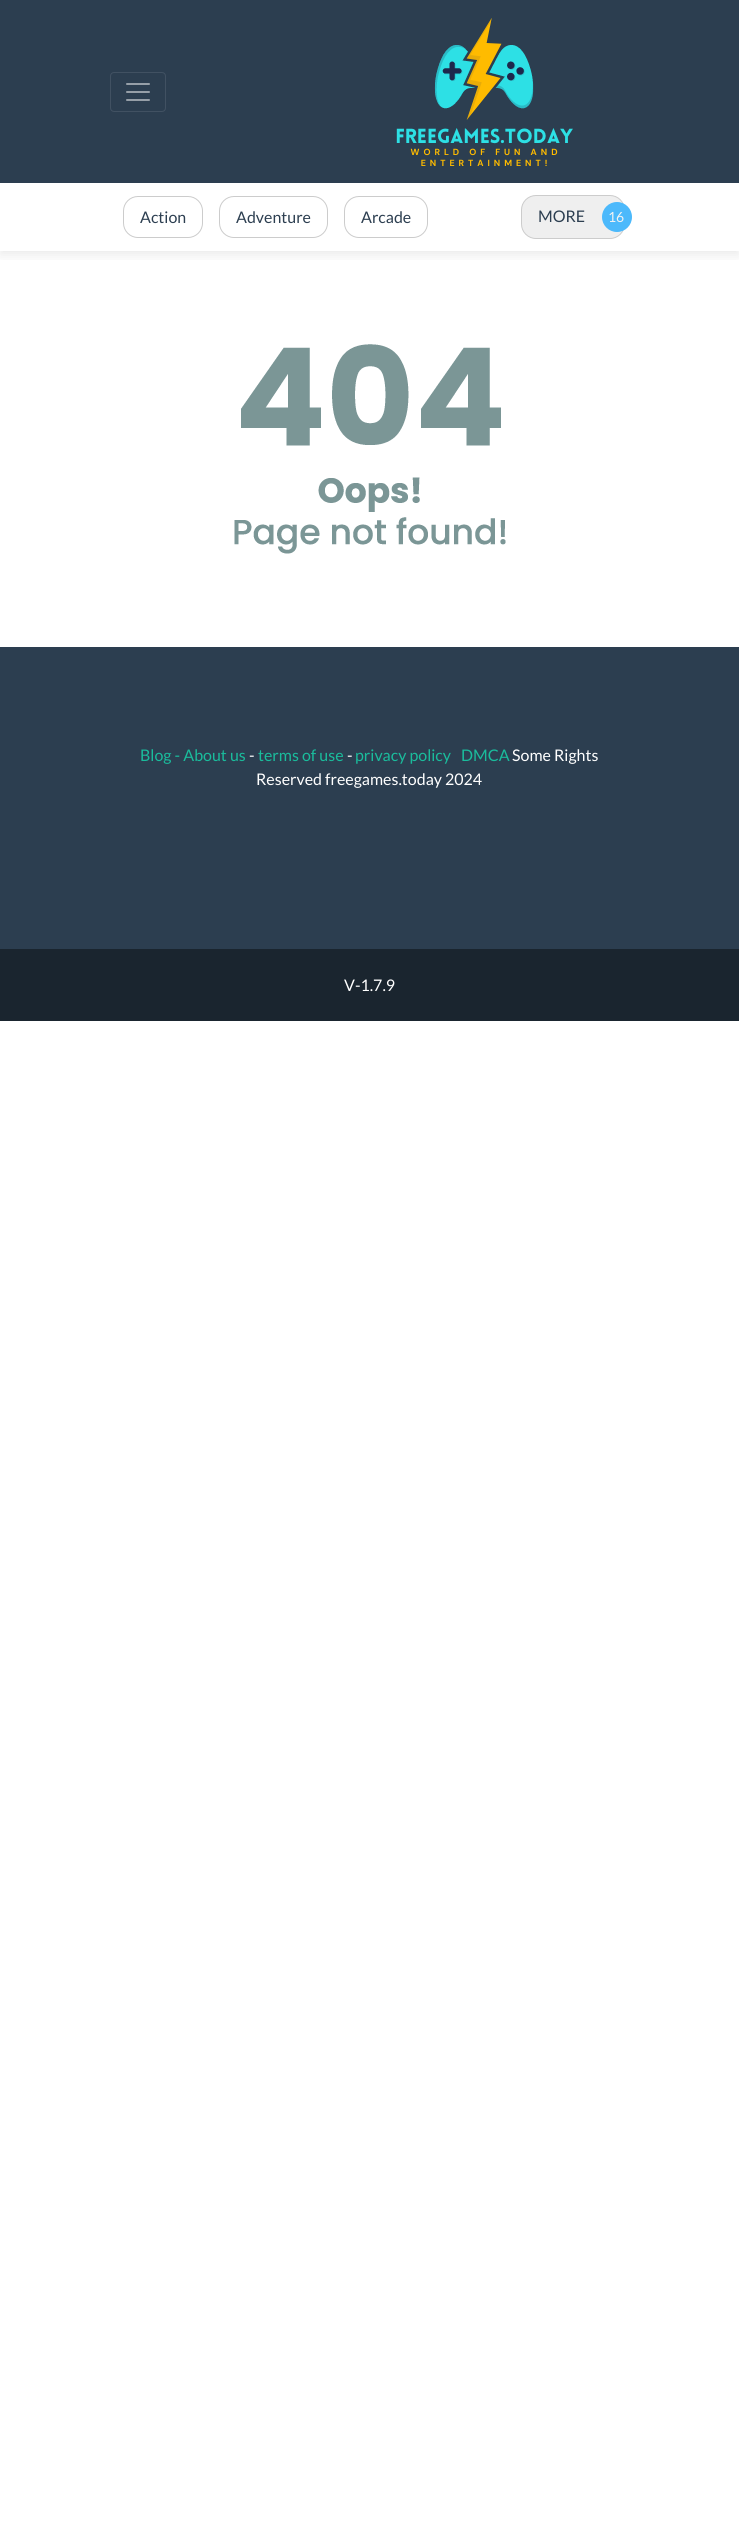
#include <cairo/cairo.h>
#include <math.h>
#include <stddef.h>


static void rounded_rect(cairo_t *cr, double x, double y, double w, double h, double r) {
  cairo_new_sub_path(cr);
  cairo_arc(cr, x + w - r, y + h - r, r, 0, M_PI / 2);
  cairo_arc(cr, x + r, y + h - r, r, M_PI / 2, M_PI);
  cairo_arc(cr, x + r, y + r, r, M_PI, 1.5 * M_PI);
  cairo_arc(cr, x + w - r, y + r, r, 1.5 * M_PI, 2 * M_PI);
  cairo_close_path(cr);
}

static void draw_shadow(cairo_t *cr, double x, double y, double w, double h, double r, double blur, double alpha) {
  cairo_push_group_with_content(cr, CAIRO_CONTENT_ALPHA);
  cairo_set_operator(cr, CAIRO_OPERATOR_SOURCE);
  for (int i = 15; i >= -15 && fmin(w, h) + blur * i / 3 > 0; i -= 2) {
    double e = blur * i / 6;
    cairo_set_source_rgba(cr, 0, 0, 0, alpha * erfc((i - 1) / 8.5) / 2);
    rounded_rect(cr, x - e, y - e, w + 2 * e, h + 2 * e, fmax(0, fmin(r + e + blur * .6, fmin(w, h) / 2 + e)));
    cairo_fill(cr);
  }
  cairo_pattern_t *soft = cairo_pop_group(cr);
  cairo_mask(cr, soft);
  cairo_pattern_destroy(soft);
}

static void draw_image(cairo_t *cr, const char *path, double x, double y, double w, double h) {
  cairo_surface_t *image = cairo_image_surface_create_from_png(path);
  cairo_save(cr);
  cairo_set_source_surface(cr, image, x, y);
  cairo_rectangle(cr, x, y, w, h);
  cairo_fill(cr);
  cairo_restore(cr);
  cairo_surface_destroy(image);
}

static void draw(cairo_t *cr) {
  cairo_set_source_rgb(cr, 1, 1, 1);
  cairo_paint(cr);
  cairo_save(cr);
  cairo_rectangle(cr, 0, 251, 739, 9);
  cairo_clip(cr);
  cairo_set_source_rgb(cr, 43 / 255.0, 43 / 255.0, 43 / 255.0);
  draw_shadow(cr, 0, 187, 739, 68, 0, 6, 0.1);
  cairo_restore(cr);
  cairo_set_source_rgb(cr, 44 / 255.0, 62 / 255.0, 80 / 255.0);
  cairo_rectangle(cr, 0, 0, 739, 183);
  cairo_fill(cr);
  rounded_rect(cr, 110.5, 72.5, 55, 39, 3.5);
  cairo_set_source_rgb(cr, 65 / 255.0, 81 / 255.0, 98 / 255.0);
  cairo_set_line_width(cr, 1);
  cairo_stroke(cr);
  draw_image(cr, "images/1.png", 126, 83, 24, 18);
  draw_image(cr, "images/2.png", 396, 18, 177, 148);
  rounded_rect(cr, 123.5, 196.5, 79, 41, 14.5);
  cairo_set_source_rgb(cr, 204 / 255.0, 204 / 255.0, 204 / 255.0);
  cairo_stroke(cr);
  rounded_rect(cr, 219.5, 196.5, 108, 41, 14.5);
  cairo_stroke(cr);
  rounded_rect(cr, 344.5, 196.5, 83, 41, 14.5);
  cairo_stroke(cr);
  cairo_set_source_rgb(cr, 239 / 255.0, 239 / 255.0, 239 / 255.0);
  rounded_rect(cr, 521.5, 195.5, 103, 43, 14.5);
  cairo_fill_preserve(cr);
  cairo_set_source_rgb(cr, 204 / 255.0, 204 / 255.0, 204 / 255.0);
  cairo_stroke(cr);
  cairo_set_source_rgb(cr, 76 / 255.0, 185 / 255.0, 251 / 255.0);
  cairo_arc(cr, 617, 217, 15, 0, 2 * M_PI);
  cairo_fill(cr);
  draw_image(cr, "images/3.png", 234, 344, 272, 210);
  cairo_set_source_rgb(cr, 44 / 255.0, 62 / 255.0, 80 / 255.0);
  cairo_rectangle(cr, 0, 647, 739, 302);
  cairo_fill(cr);
  cairo_set_source_rgb(cr, 26 / 255.0, 37 / 255.0, 47 / 255.0);
  cairo_rectangle(cr, 0, 949, 739, 72);
  cairo_fill(cr);
  cairo_select_font_face(cr, "Lato", CAIRO_FONT_SLANT_NORMAL, CAIRO_FONT_WEIGHT_NORMAL);
  cairo_set_font_size(cr, 16);
  cairo_set_source_rgb(cr, 44 / 255.0, 62 / 255.0, 80 / 255.0);
  cairo_move_to(cr, 140, 223);
  cairo_show_text(cr, "Action");
  cairo_move_to(cr, 236, 223);
  cairo_show_text(cr, "Adventure");
  cairo_move_to(cr, 361, 223);
  cairo_show_text(cr, "Arcade");
  cairo_move_to(cr, 538, 222);
  cairo_show_text(cr, "MORE");
  cairo_set_font_size(cr, 14);
  cairo_set_source_rgb(cr, 242 / 255.0, 242 / 255.0, 242 / 255.0);
  cairo_move_to(cr, 608, 222);
  cairo_show_text(cr, "16");
  cairo_set_font_size(cr, 16);
  cairo_set_source_rgb(cr, 26 / 255.0, 188 / 255.0, 156 / 255.0);
  cairo_move_to(cr, 140, 761);
  cairo_show_text(cr, "Blog - About us");
  cairo_set_source_rgb(cr, 1, 1, 1);
  cairo_move_to(cr, 249, 761);
  cairo_show_text(cr, "-");
  cairo_set_source_rgb(cr, 26 / 255.0, 188 / 255.0, 156 / 255.0);
  cairo_move_to(cr, 258, 761);
  cairo_show_text(cr, "terms of use");
  cairo_set_source_rgb(cr, 1, 1, 1);
  cairo_move_to(cr, 347, 761);
  cairo_show_text(cr, "-");
  cairo_set_source_rgb(cr, 26 / 255.0, 188 / 255.0, 156 / 255.0);
  cairo_move_to(cr, 355, 761);
  cairo_show_text(cr, "privacy policy");
  cairo_move_to(cr, 461, 761);
  cairo_show_text(cr, "DMCA");
  cairo_set_source_rgb(cr, 1, 1, 1);
  cairo_move_to(cr, 512, 761);
  cairo_show_text(cr, "Some Rights");
  cairo_move_to(cr, 256, 785);
  cairo_show_text(cr, "Reserved freegames.today 2024");
  cairo_move_to(cr, 344, 991);
  cairo_show_text(cr, "V-1.7.9");
}

int main(void) {
  cairo_surface_t *surface = cairo_image_surface_create(CAIRO_FORMAT_RGB24, 739, 2525);
  cairo_t *cr = cairo_create(surface);
  cairo_font_options_t *options = cairo_font_options_create();
  cairo_font_options_set_hint_metrics(options, CAIRO_HINT_METRICS_OFF);
  cairo_font_options_set_hint_style(options, CAIRO_HINT_STYLE_NONE);
  cairo_set_font_options(cr, options);
  cairo_set_miter_limit(cr, 4);
  draw(cr);
  cairo_surface_write_to_png(surface, "out.png");
  cairo_font_options_destroy(options);
  cairo_destroy(cr);
  cairo_surface_destroy(surface);
  return 0;
}
